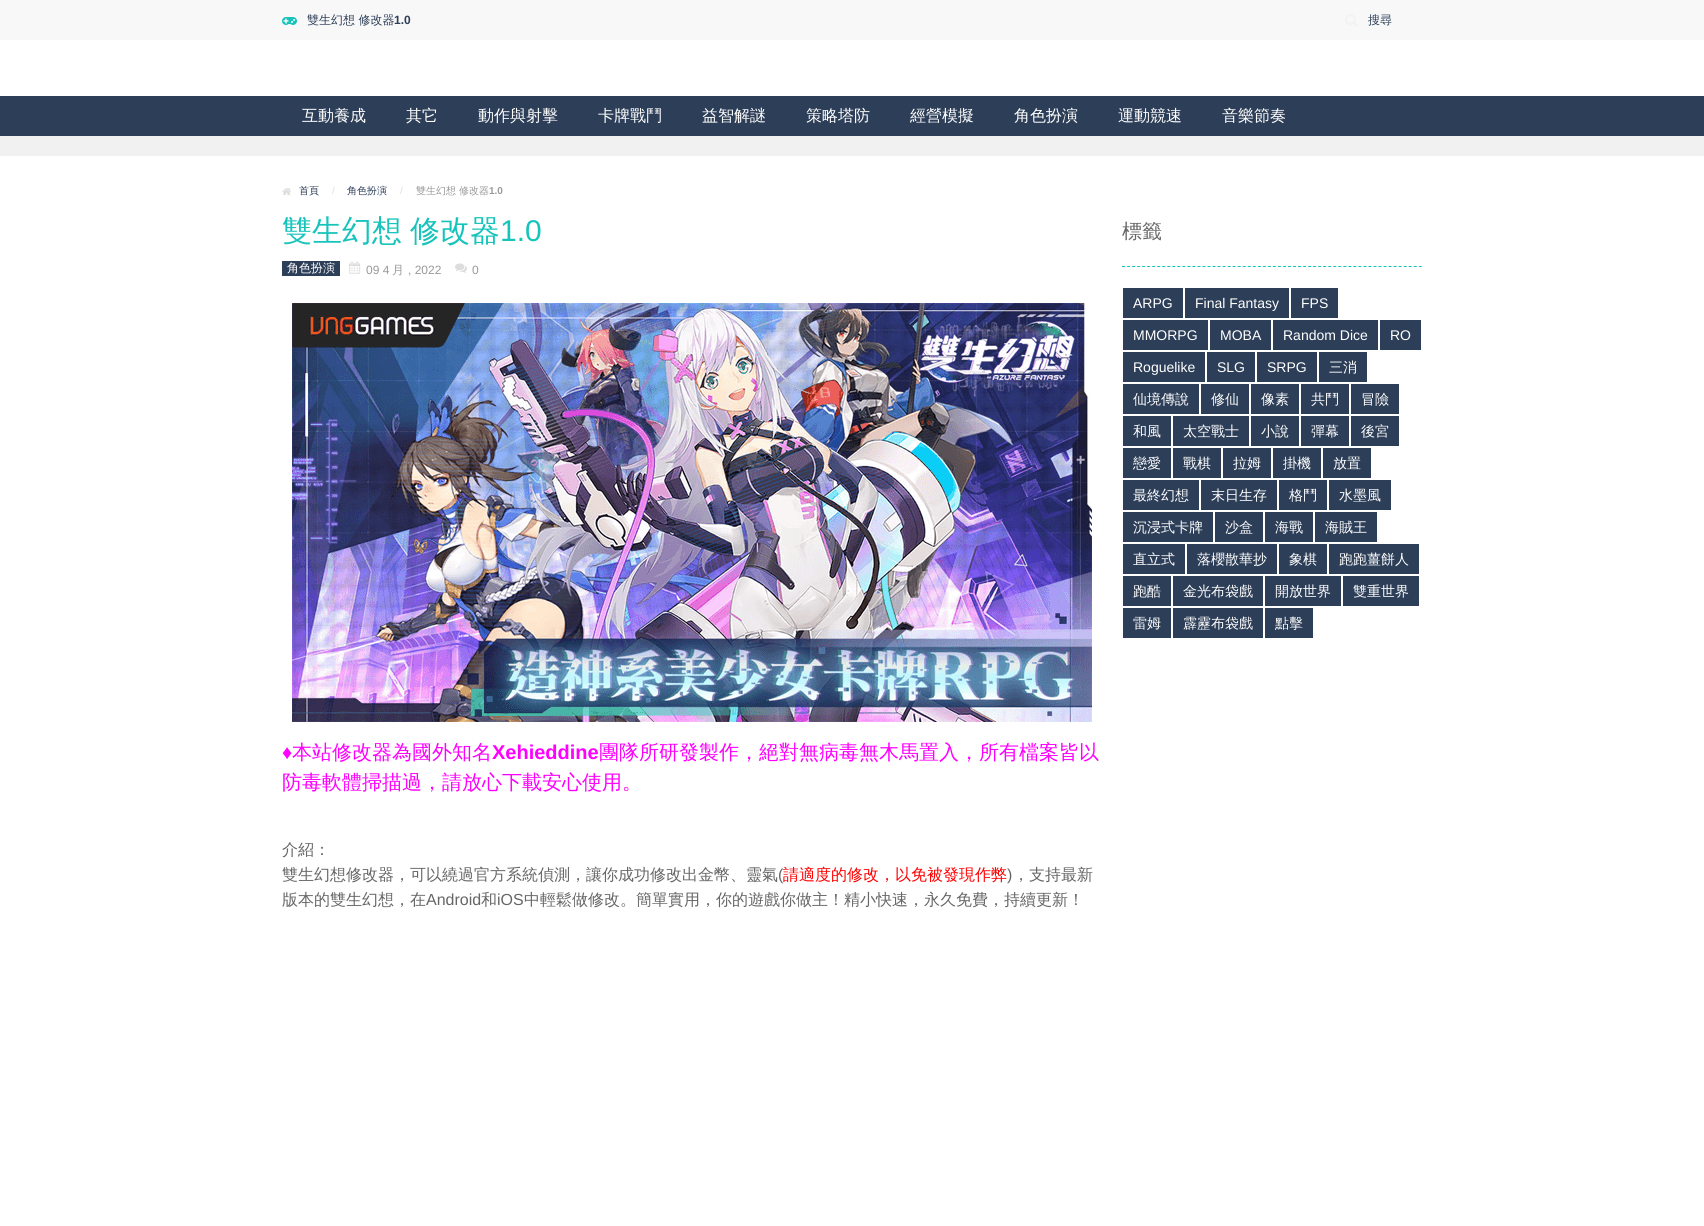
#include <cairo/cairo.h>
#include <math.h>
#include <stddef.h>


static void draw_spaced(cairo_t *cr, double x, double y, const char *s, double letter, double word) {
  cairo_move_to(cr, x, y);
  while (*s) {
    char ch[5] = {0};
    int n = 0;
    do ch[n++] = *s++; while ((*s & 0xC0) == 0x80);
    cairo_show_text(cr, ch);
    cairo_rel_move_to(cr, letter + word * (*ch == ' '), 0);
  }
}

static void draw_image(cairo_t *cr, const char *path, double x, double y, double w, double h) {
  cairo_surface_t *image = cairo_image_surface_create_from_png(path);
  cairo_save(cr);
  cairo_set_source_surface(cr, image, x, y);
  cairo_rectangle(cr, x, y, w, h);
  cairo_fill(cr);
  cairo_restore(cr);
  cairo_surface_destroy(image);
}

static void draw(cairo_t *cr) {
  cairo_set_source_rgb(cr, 241 / 255.0, 241 / 255.0, 241 / 255.0);
  cairo_paint(cr);
  cairo_set_source_rgb(cr, 248 / 255.0, 248 / 255.0, 248 / 255.0);
  cairo_rectangle(cr, 0, 0, 1704, 40);
  cairo_fill(cr);
  draw_image(cr, "images/1.png", 282, 17, 15, 8);
  draw_image(cr, "images/2.png", 1345, 14, 13, 13);
  cairo_set_source_rgb(cr, 1, 1, 1);
  cairo_rectangle(cr, 0, 40, 1704, 56);
  cairo_fill(cr);
  cairo_set_source_rgb(cr, 45 / 255.0, 62 / 255.0, 88 / 255.0);
  cairo_rectangle(cr, 0, 96, 1704, 40);
  cairo_fill(cr);
  cairo_set_source_rgb(cr, 1, 1, 1);
  cairo_rectangle(cr, 0, 156, 1704, 1070);
  cairo_fill(cr);
  draw_image(cr, "images/3.png", 282, 188, 9, 7);
  cairo_set_source_rgb(cr, 45 / 255.0, 62 / 255.0, 88 / 255.0);
  cairo_rectangle(cr, 282, 261, 58, 15);
  cairo_fill(cr);
  draw_image(cr, "images/4.png", 349, 261, 12, 13);
  draw_image(cr, "images/5.png", 455, 263, 12, 10);
  draw_image(cr, "images/6.png", 292, 303, 800, 419);
  cairo_new_path(cr);
  cairo_move_to(cr, 1122, 266.5);
  cairo_line_to(cr, 1422, 266.5);
  cairo_set_source_rgb(cr, 22 / 255.0, 196 / 255.0, 187 / 255.0);
  cairo_set_line_width(cr, 1);
  cairo_set_dash(cr, (double[]){3, 2.03}, 2, 0);
  cairo_stroke(cr);
  cairo_set_source_rgb(cr, 45 / 255.0, 62 / 255.0, 88 / 255.0);
  cairo_rectangle(cr, 1123, 288, 60, 30);
  cairo_fill(cr);
  cairo_rectangle(cr, 1185, 288, 104, 30);
  cairo_fill(cr);
  cairo_rectangle(cr, 1291, 288, 47, 30);
  cairo_fill(cr);
  cairo_rectangle(cr, 1123, 320, 85, 30);
  cairo_fill(cr);
  cairo_rectangle(cr, 1210, 320, 61, 30);
  cairo_fill(cr);
  cairo_rectangle(cr, 1273, 320, 105, 30);
  cairo_fill(cr);
  cairo_rectangle(cr, 1380, 320, 41, 30);
  cairo_fill(cr);
  cairo_rectangle(cr, 1123, 352, 82, 30);
  cairo_fill(cr);
  cairo_rectangle(cr, 1207, 352, 48, 30);
  cairo_fill(cr);
  cairo_rectangle(cr, 1257, 352, 60, 30);
  cairo_fill(cr);
  cairo_rectangle(cr, 1319, 352, 48, 30);
  cairo_fill(cr);
  cairo_rectangle(cr, 1123, 384, 76, 30);
  cairo_fill(cr);
  cairo_rectangle(cr, 1201, 384, 48, 30);
  cairo_fill(cr);
  cairo_rectangle(cr, 1251, 384, 48, 30);
  cairo_fill(cr);
  cairo_rectangle(cr, 1301, 384, 48, 30);
  cairo_fill(cr);
  cairo_rectangle(cr, 1351, 384, 48, 30);
  cairo_fill(cr);
  cairo_rectangle(cr, 1123, 416, 48, 30);
  cairo_fill(cr);
  cairo_rectangle(cr, 1173, 416, 76, 30);
  cairo_fill(cr);
  cairo_rectangle(cr, 1251, 416, 48, 30);
  cairo_fill(cr);
  cairo_rectangle(cr, 1301, 416, 48, 30);
  cairo_fill(cr);
  cairo_rectangle(cr, 1351, 416, 48, 30);
  cairo_fill(cr);
  cairo_rectangle(cr, 1123, 448, 48, 30);
  cairo_fill(cr);
  cairo_rectangle(cr, 1173, 448, 48, 30);
  cairo_fill(cr);
  cairo_rectangle(cr, 1223, 448, 48, 30);
  cairo_fill(cr);
  cairo_rectangle(cr, 1273, 448, 48, 30);
  cairo_fill(cr);
  cairo_rectangle(cr, 1323, 448, 48, 30);
  cairo_fill(cr);
  cairo_rectangle(cr, 1123, 480, 76, 30);
  cairo_fill(cr);
  cairo_rectangle(cr, 1201, 480, 76, 30);
  cairo_fill(cr);
  cairo_rectangle(cr, 1279, 480, 48, 30);
  cairo_fill(cr);
  cairo_rectangle(cr, 1329, 480, 62, 30);
  cairo_fill(cr);
  cairo_rectangle(cr, 1123, 512, 90, 30);
  cairo_fill(cr);
  cairo_rectangle(cr, 1215, 512, 48, 30);
  cairo_fill(cr);
  cairo_rectangle(cr, 1265, 512, 48, 30);
  cairo_fill(cr);
  cairo_rectangle(cr, 1315, 512, 62, 30);
  cairo_fill(cr);
  cairo_rectangle(cr, 1123, 544, 62, 30);
  cairo_fill(cr);
  cairo_rectangle(cr, 1187, 544, 90, 30);
  cairo_fill(cr);
  cairo_rectangle(cr, 1279, 544, 48, 30);
  cairo_fill(cr);
  cairo_rectangle(cr, 1329, 544, 90, 30);
  cairo_fill(cr);
  cairo_rectangle(cr, 1123, 576, 48, 30);
  cairo_fill(cr);
  cairo_rectangle(cr, 1173, 576, 90, 30);
  cairo_fill(cr);
  cairo_rectangle(cr, 1265, 576, 76, 30);
  cairo_fill(cr);
  cairo_rectangle(cr, 1343, 576, 76, 30);
  cairo_fill(cr);
  cairo_rectangle(cr, 1123, 608, 48, 30);
  cairo_fill(cr);
  cairo_rectangle(cr, 1173, 608, 90, 30);
  cairo_fill(cr);
  cairo_rectangle(cr, 1265, 608, 48, 30);
  cairo_fill(cr);
  cairo_select_font_face(cr, "WenQuanYi Zen Hei Medium", CAIRO_FONT_SLANT_NORMAL, CAIRO_FONT_WEIGHT_NORMAL);
  cairo_set_font_size(cr, 12);
  cairo_move_to(cr, 307, 24);
  cairo_show_text(cr, "雙生幻想 修改器");
  cairo_select_font_face(cr, "Liberation Sans", CAIRO_FONT_SLANT_NORMAL, CAIRO_FONT_WEIGHT_BOLD);
  cairo_move_to(cr, 394, 24);
  cairo_show_text(cr, "1.0");
  cairo_select_font_face(cr, "WenQuanYi Zen Hei Medium", CAIRO_FONT_SLANT_NORMAL, CAIRO_FONT_WEIGHT_NORMAL);
  cairo_move_to(cr, 1368, 24);
  cairo_show_text(cr, "搜尋");
  cairo_set_font_size(cr, 16);
  cairo_set_source_rgb(cr, 1, 1, 1);
  cairo_move_to(cr, 302, 121);
  cairo_show_text(cr, "互動養成");
  cairo_move_to(cr, 406, 121);
  cairo_show_text(cr, "其它");
  cairo_move_to(cr, 478, 121);
  cairo_show_text(cr, "動作與射擊");
  cairo_move_to(cr, 598, 121);
  cairo_show_text(cr, "卡牌戰鬥");
  cairo_move_to(cr, 702, 121);
  cairo_show_text(cr, "益智解謎");
  cairo_move_to(cr, 806, 121);
  cairo_show_text(cr, "策略塔防");
  cairo_move_to(cr, 910, 121);
  cairo_show_text(cr, "經營模擬");
  cairo_move_to(cr, 1014, 121);
  cairo_show_text(cr, "角色扮演");
  cairo_move_to(cr, 1118, 121);
  cairo_show_text(cr, "運動競速");
  cairo_move_to(cr, 1222, 121);
  cairo_show_text(cr, "音樂節奏");
  cairo_set_font_size(cr, 10);
  cairo_set_source_rgb(cr, 45 / 255.0, 62 / 255.0, 88 / 255.0);
  cairo_move_to(cr, 299, 194);
  cairo_show_text(cr, "首頁");
  cairo_select_font_face(cr, "Liberation Sans", CAIRO_FONT_SLANT_NORMAL, CAIRO_FONT_WEIGHT_NORMAL);
  cairo_set_source_rgb(cr, 221 / 255.0, 221 / 255.0, 221 / 255.0);
  cairo_move_to(cr, 332, 194);
  cairo_show_text(cr, "/");
  cairo_select_font_face(cr, "WenQuanYi Zen Hei Medium", CAIRO_FONT_SLANT_NORMAL, CAIRO_FONT_WEIGHT_NORMAL);
  cairo_set_source_rgb(cr, 45 / 255.0, 62 / 255.0, 88 / 255.0);
  cairo_move_to(cr, 347, 194);
  cairo_show_text(cr, "角色扮演");
  cairo_select_font_face(cr, "Liberation Sans", CAIRO_FONT_SLANT_NORMAL, CAIRO_FONT_WEIGHT_NORMAL);
  cairo_set_source_rgb(cr, 221 / 255.0, 221 / 255.0, 221 / 255.0);
  cairo_move_to(cr, 400, 194);
  cairo_show_text(cr, "/");
  cairo_select_font_face(cr, "WenQuanYi Zen Hei Medium", CAIRO_FONT_SLANT_NORMAL, CAIRO_FONT_WEIGHT_NORMAL);
  cairo_set_source_rgb(cr, 153 / 255.0, 153 / 255.0, 153 / 255.0);
  cairo_move_to(cr, 416, 194);
  cairo_show_text(cr, "雙生幻想 修改器");
  cairo_select_font_face(cr, "Liberation Sans", CAIRO_FONT_SLANT_NORMAL, CAIRO_FONT_WEIGHT_BOLD);
  cairo_move_to(cr, 489, 194);
  cairo_show_text(cr, "1.0");
  cairo_select_font_face(cr, "WenQuanYi Zen Hei Medium", CAIRO_FONT_SLANT_NORMAL, CAIRO_FONT_WEIGHT_NORMAL);
  cairo_set_font_size(cr, 30);
  cairo_set_source_rgb(cr, 22 / 255.0, 196 / 255.0, 187 / 255.0);
  draw_spaced(cr, 282, 241, "雙生幻想 修改器", 0, -1);
  cairo_select_font_face(cr, "Liberation Sans", CAIRO_FONT_SLANT_NORMAL, CAIRO_FONT_WEIGHT_NORMAL);
  cairo_move_to(cr, 500, 241);
  cairo_show_text(cr, "1.0");
  cairo_select_font_face(cr, "WenQuanYi Zen Hei Medium", CAIRO_FONT_SLANT_NORMAL, CAIRO_FONT_WEIGHT_NORMAL);
  cairo_set_font_size(cr, 12);
  cairo_set_source_rgb(cr, 1, 1, 1);
  cairo_move_to(cr, 287, 272);
  cairo_show_text(cr, "角色扮演");
  cairo_select_font_face(cr, "Liberation Sans", CAIRO_FONT_SLANT_NORMAL, CAIRO_FONT_WEIGHT_NORMAL);
  cairo_set_source_rgb(cr, 153 / 255.0, 153 / 255.0, 153 / 255.0);
  cairo_move_to(cr, 366, 274);
  cairo_show_text(cr, "09 4");
  cairo_select_font_face(cr, "WenQuanYi Zen Hei Medium", CAIRO_FONT_SLANT_NORMAL, CAIRO_FONT_WEIGHT_NORMAL);
  cairo_move_to(cr, 392, 274);
  cairo_show_text(cr, "月");
  cairo_select_font_face(cr, "Liberation Sans", CAIRO_FONT_SLANT_NORMAL, CAIRO_FONT_WEIGHT_NORMAL);
  cairo_move_to(cr, 408, 274);
  cairo_show_text(cr, ", 2022");
  cairo_move_to(cr, 472, 274);
  cairo_show_text(cr, "0");
  cairo_select_font_face(cr, "Liberation Sans", CAIRO_FONT_SLANT_NORMAL, CAIRO_FONT_WEIGHT_BOLD);
  cairo_set_font_size(cr, 20);
  cairo_set_source_rgb(cr, 1, 0, 1);
  cairo_move_to(cr, 282, 759);
  cairo_show_text(cr, "♦");
  cairo_select_font_face(cr, "WenQuanYi Zen Hei Medium", CAIRO_FONT_SLANT_NORMAL, CAIRO_FONT_WEIGHT_NORMAL);
  cairo_move_to(cr, 292, 759);
  cairo_show_text(cr, "本站修改器為國外知名");
  cairo_select_font_face(cr, "Liberation Sans", CAIRO_FONT_SLANT_NORMAL, CAIRO_FONT_WEIGHT_BOLD);
  cairo_move_to(cr, 492, 759);
  cairo_show_text(cr, "Xehieddine");
  cairo_select_font_face(cr, "WenQuanYi Zen Hei Medium", CAIRO_FONT_SLANT_NORMAL, CAIRO_FONT_WEIGHT_NORMAL);
  cairo_move_to(cr, 599, 759);
  cairo_show_text(cr, "團隊所研發製作，絕對無病毒無木馬置入，所有檔案皆以");
  cairo_move_to(cr, 282, 789);
  cairo_show_text(cr, "防毒軟體掃描過，請放心下載安心使用。");
  cairo_set_font_size(cr, 16);
  cairo_set_source_rgb(cr, 102 / 255.0, 102 / 255.0, 102 / 255.0);
  cairo_move_to(cr, 282, 855);
  cairo_show_text(cr, "介紹：");
  cairo_move_to(cr, 282, 880);
  cairo_show_text(cr, "雙生幻想修改器，可以繞過官方系統偵測，讓你成功修改出金幣、靈氣");
  cairo_select_font_face(cr, "Liberation Sans", CAIRO_FONT_SLANT_NORMAL, CAIRO_FONT_WEIGHT_NORMAL);
  cairo_move_to(cr, 778, 880);
  cairo_show_text(cr, "(");
  cairo_select_font_face(cr, "WenQuanYi Zen Hei Medium", CAIRO_FONT_SLANT_NORMAL, CAIRO_FONT_WEIGHT_NORMAL);
  cairo_set_source_rgb(cr, 1, 0, 0);
  cairo_move_to(cr, 783, 880);
  cairo_show_text(cr, "請適度的修改，以免被發現作弊");
  cairo_select_font_face(cr, "Liberation Sans", CAIRO_FONT_SLANT_NORMAL, CAIRO_FONT_WEIGHT_NORMAL);
  cairo_set_source_rgb(cr, 102 / 255.0, 102 / 255.0, 102 / 255.0);
  cairo_move_to(cr, 1007, 880);
  cairo_show_text(cr, ")");
  cairo_select_font_face(cr, "WenQuanYi Zen Hei Medium", CAIRO_FONT_SLANT_NORMAL, CAIRO_FONT_WEIGHT_NORMAL);
  cairo_move_to(cr, 1013, 880);
  cairo_show_text(cr, "，支持最新");
  cairo_move_to(cr, 282, 905);
  cairo_show_text(cr, "版本的雙生幻想，在");
  cairo_select_font_face(cr, "Liberation Sans", CAIRO_FONT_SLANT_NORMAL, CAIRO_FONT_WEIGHT_NORMAL);
  cairo_move_to(cr, 426, 905);
  cairo_show_text(cr, "Android");
  cairo_select_font_face(cr, "WenQuanYi Zen Hei Medium", CAIRO_FONT_SLANT_NORMAL, CAIRO_FONT_WEIGHT_NORMAL);
  cairo_move_to(cr, 481, 905);
  cairo_show_text(cr, "和");
  cairo_select_font_face(cr, "Liberation Sans", CAIRO_FONT_SLANT_NORMAL, CAIRO_FONT_WEIGHT_NORMAL);
  cairo_move_to(cr, 497, 905);
  cairo_show_text(cr, "iOS");
  cairo_select_font_face(cr, "WenQuanYi Zen Hei Medium", CAIRO_FONT_SLANT_NORMAL, CAIRO_FONT_WEIGHT_NORMAL);
  cairo_move_to(cr, 524, 905);
  cairo_show_text(cr, "中輕鬆做修改。簡單實用，你的遊戲你做主！精小快速，永久免費，持續更新！");
  cairo_set_font_size(cr, 20);
  cairo_move_to(cr, 1122, 238);
  cairo_show_text(cr, "標籤");
  cairo_select_font_face(cr, "Liberation Sans", CAIRO_FONT_SLANT_NORMAL, CAIRO_FONT_WEIGHT_NORMAL);
  cairo_set_font_size(cr, 14);
  cairo_set_source_rgb(cr, 1, 1, 1);
  cairo_move_to(cr, 1133, 308);
  cairo_show_text(cr, "ARPG");
  cairo_move_to(cr, 1195, 308);
  cairo_show_text(cr, "Final Fantasy");
  cairo_move_to(cr, 1301, 308);
  cairo_show_text(cr, "FPS");
  cairo_move_to(cr, 1133, 340);
  cairo_show_text(cr, "MMORPG");
  cairo_move_to(cr, 1220, 340);
  cairo_show_text(cr, "MOBA");
  cairo_move_to(cr, 1283, 340);
  cairo_show_text(cr, "Random Dice");
  cairo_move_to(cr, 1390, 340);
  cairo_show_text(cr, "RO");
  cairo_move_to(cr, 1133, 372);
  cairo_show_text(cr, "Roguelike");
  cairo_move_to(cr, 1217, 372);
  cairo_show_text(cr, "SLG");
  cairo_move_to(cr, 1267, 372);
  cairo_show_text(cr, "SRPG");
  cairo_select_font_face(cr, "WenQuanYi Zen Hei Medium", CAIRO_FONT_SLANT_NORMAL, CAIRO_FONT_WEIGHT_NORMAL);
  cairo_move_to(cr, 1329, 372);
  cairo_show_text(cr, "三消");
  cairo_move_to(cr, 1133, 404);
  cairo_show_text(cr, "仙境傳說");
  cairo_move_to(cr, 1211, 404);
  cairo_show_text(cr, "修仙");
  cairo_move_to(cr, 1261, 404);
  cairo_show_text(cr, "像素");
  cairo_move_to(cr, 1311, 404);
  cairo_show_text(cr, "共鬥");
  cairo_move_to(cr, 1361, 404);
  cairo_show_text(cr, "冒險");
  cairo_move_to(cr, 1133, 436);
  cairo_show_text(cr, "和風");
  cairo_move_to(cr, 1183, 436);
  cairo_show_text(cr, "太空戰士");
  cairo_move_to(cr, 1261, 436);
  cairo_show_text(cr, "小說");
  cairo_move_to(cr, 1311, 436);
  cairo_show_text(cr, "彈幕");
  cairo_move_to(cr, 1361, 436);
  cairo_show_text(cr, "後宮");
  cairo_move_to(cr, 1133, 468);
  cairo_show_text(cr, "戀愛");
  cairo_move_to(cr, 1183, 468);
  cairo_show_text(cr, "戰棋");
  cairo_move_to(cr, 1233, 468);
  cairo_show_text(cr, "拉姆");
  cairo_move_to(cr, 1283, 468);
  cairo_show_text(cr, "掛機");
  cairo_move_to(cr, 1333, 468);
  cairo_show_text(cr, "放置");
  cairo_move_to(cr, 1133, 500);
  cairo_show_text(cr, "最終幻想");
  cairo_move_to(cr, 1211, 500);
  cairo_show_text(cr, "末日生存");
  cairo_move_to(cr, 1289, 500);
  cairo_show_text(cr, "格鬥");
  cairo_move_to(cr, 1339, 500);
  cairo_show_text(cr, "水墨風");
  cairo_move_to(cr, 1133, 532);
  cairo_show_text(cr, "沉浸式卡牌");
  cairo_move_to(cr, 1225, 532);
  cairo_show_text(cr, "沙盒");
  cairo_move_to(cr, 1275, 532);
  cairo_show_text(cr, "海戰");
  cairo_move_to(cr, 1325, 532);
  cairo_show_text(cr, "海賊王");
  cairo_move_to(cr, 1133, 564);
  cairo_show_text(cr, "直立式");
  cairo_move_to(cr, 1197, 564);
  cairo_show_text(cr, "落櫻散華抄");
  cairo_move_to(cr, 1289, 564);
  cairo_show_text(cr, "象棋");
  cairo_move_to(cr, 1339, 564);
  cairo_show_text(cr, "跑跑薑餅人");
  cairo_move_to(cr, 1133, 596);
  cairo_show_text(cr, "跑酷");
  cairo_move_to(cr, 1183, 596);
  cairo_show_text(cr, "金光布袋戲");
  cairo_move_to(cr, 1275, 596);
  cairo_show_text(cr, "開放世界");
  cairo_move_to(cr, 1353, 596);
  cairo_show_text(cr, "雙重世界");
  cairo_move_to(cr, 1133, 628);
  cairo_show_text(cr, "雷姆");
  cairo_move_to(cr, 1183, 628);
  cairo_show_text(cr, "霹靂布袋戲");
  cairo_move_to(cr, 1275, 628);
  cairo_show_text(cr, "點擊");
}

int main(void) {
  cairo_surface_t *surface = cairo_image_surface_create(CAIRO_FORMAT_RGB24, 1704, 1226);
  cairo_t *cr = cairo_create(surface);
  cairo_font_options_t *options = cairo_font_options_create();
  cairo_font_options_set_hint_metrics(options, CAIRO_HINT_METRICS_OFF);
  cairo_font_options_set_hint_style(options, CAIRO_HINT_STYLE_NONE);
  cairo_set_font_options(cr, options);
  cairo_set_miter_limit(cr, 4);
  draw(cr);
  cairo_surface_write_to_png(surface, "out.png");
  cairo_font_options_destroy(options);
  cairo_destroy(cr);
  cairo_surface_destroy(surface);
  return 0;
}
